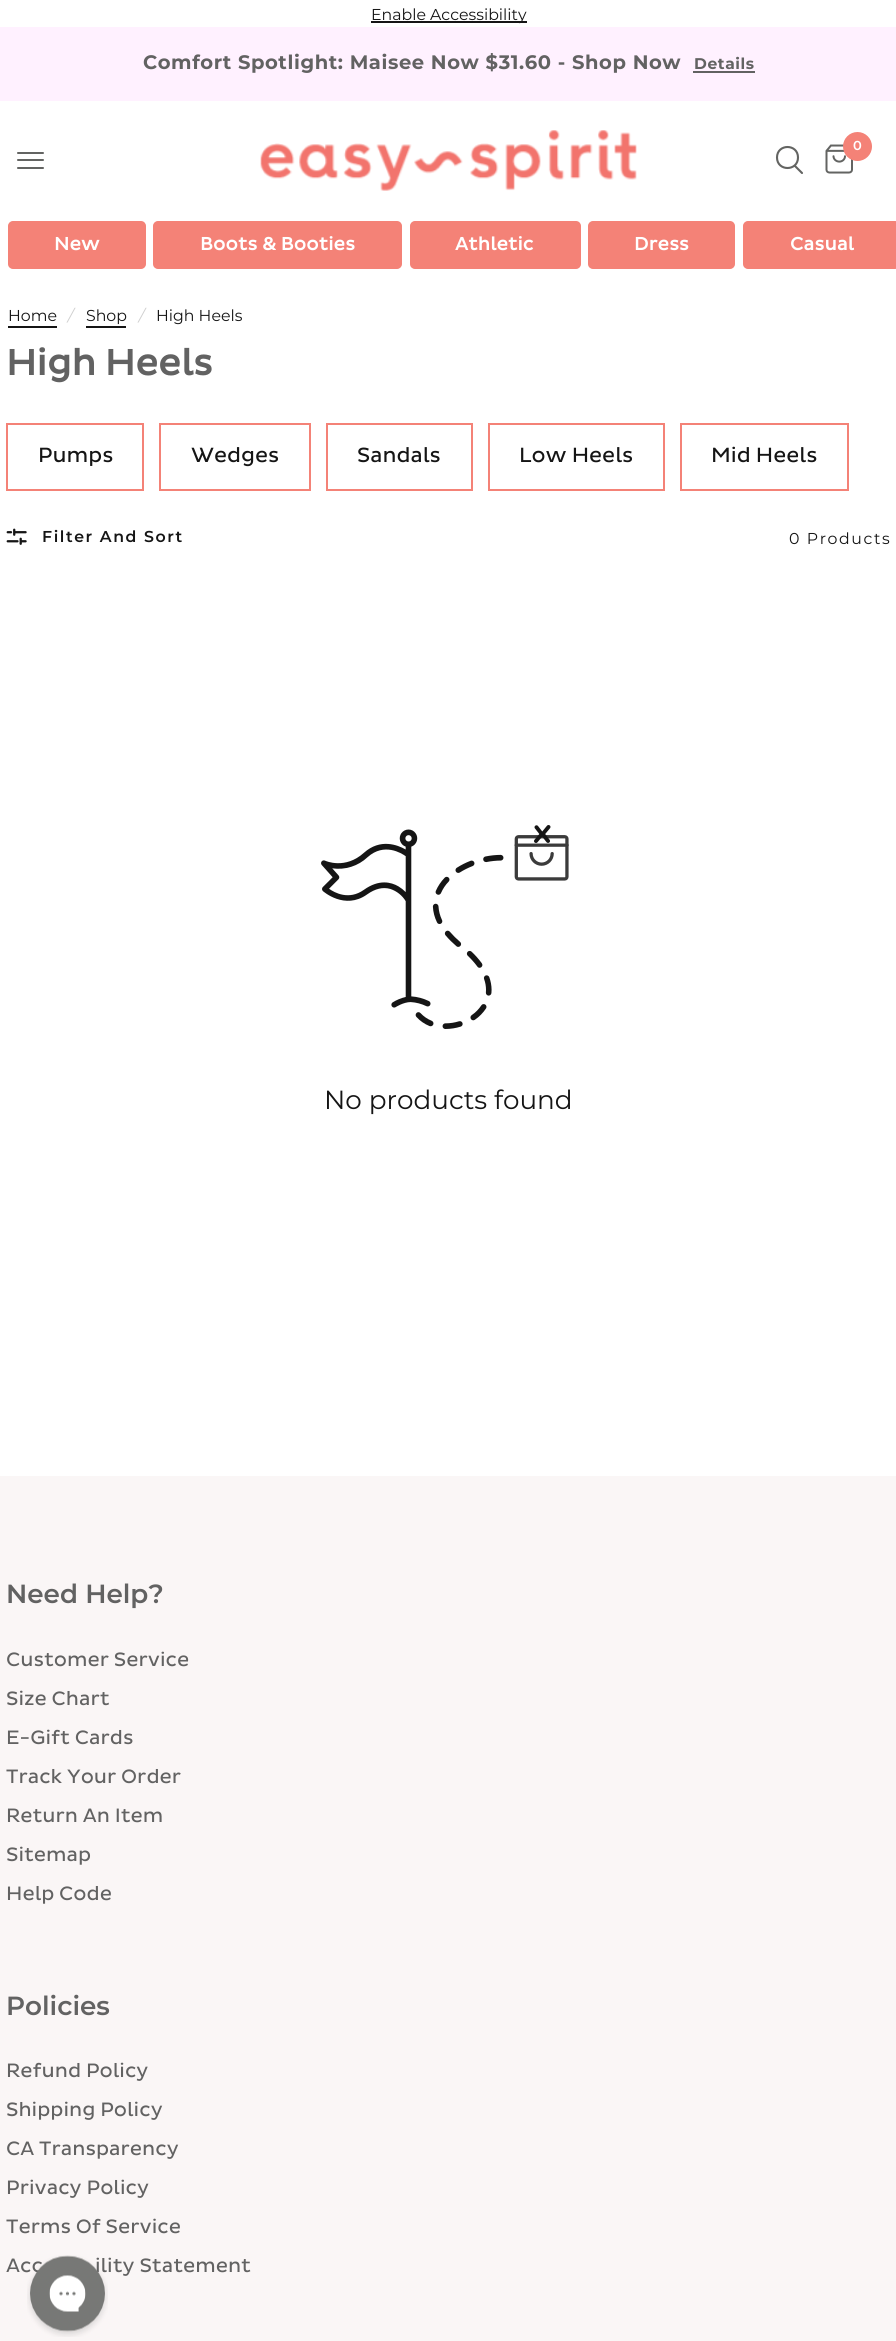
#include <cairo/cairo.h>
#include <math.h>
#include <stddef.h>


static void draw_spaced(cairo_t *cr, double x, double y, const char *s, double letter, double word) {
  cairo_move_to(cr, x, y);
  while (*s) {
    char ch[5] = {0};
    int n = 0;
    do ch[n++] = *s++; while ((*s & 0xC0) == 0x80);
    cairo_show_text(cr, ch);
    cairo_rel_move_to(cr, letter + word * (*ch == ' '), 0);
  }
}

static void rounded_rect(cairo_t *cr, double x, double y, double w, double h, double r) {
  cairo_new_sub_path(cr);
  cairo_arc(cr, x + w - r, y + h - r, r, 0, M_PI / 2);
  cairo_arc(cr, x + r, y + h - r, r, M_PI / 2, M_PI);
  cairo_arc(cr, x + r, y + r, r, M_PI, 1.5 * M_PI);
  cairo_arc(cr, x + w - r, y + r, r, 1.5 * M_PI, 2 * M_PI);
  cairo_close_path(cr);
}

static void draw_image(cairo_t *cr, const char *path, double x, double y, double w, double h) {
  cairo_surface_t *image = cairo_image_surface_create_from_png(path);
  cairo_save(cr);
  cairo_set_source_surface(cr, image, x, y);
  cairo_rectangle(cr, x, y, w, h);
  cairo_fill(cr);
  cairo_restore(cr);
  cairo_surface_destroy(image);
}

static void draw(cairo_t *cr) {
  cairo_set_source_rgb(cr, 1, 1, 1);
  cairo_paint(cr);
  cairo_set_source_rgb(cr, 21 / 255.0, 21 / 255.0, 21 / 255.0);
  cairo_rectangle(cr, 371, 21, 156, 2);
  cairo_fill(cr);
  cairo_set_source_rgb(cr, 1, 241 / 255.0, 1);
  cairo_rectangle(cr, 0, 27, 896, 74);
  cairo_fill(cr);
  cairo_set_source_rgb(cr, 98 / 255.0, 98 / 255.0, 98 / 255.0);
  cairo_rectangle(cr, 693, 71, 62, 2);
  cairo_fill(cr);
  draw_image(cr, "images/1.png", 260, 130, 377, 61);
  cairo_new_path(cr);
  cairo_move_to(cr, 795, 166);
  cairo_line_to(cr, 802, 173);
  cairo_move_to(cr, 798, 157.5);
  cairo_curve_to(cr, 798, 171.5, 777, 171.5, 777, 157.5);
  cairo_curve_to(cr, 777, 143.5, 798, 143.5, 798, 157.5);
  cairo_close_path(cr);
  cairo_set_source_rgb(cr, 99 / 255.0, 100 / 255.0, 98 / 255.0);
  cairo_set_line_width(cr, 2.1);
  cairo_set_line_cap(cr, CAIRO_LINE_CAP_ROUND);
  cairo_set_line_join(cr, CAIRO_LINE_JOIN_ROUND);
  cairo_stroke(cr);
  draw_image(cr, "images/2.png", 825, 144, 28, 30);
  cairo_set_source_rgb(cr, 244 / 255.0, 130 / 255.0, 119 / 255.0);
  cairo_arc(cr, 857.5, 146.5, 14.5, 0, 2 * M_PI);
  cairo_fill(cr);
  cairo_set_source_rgb(cr, 99 / 255.0, 100 / 255.0, 98 / 255.0);
  rounded_rect(cr, 17, 152, 27, 2, 1);
  cairo_fill(cr);
  rounded_rect(cr, 17, 159, 27, 2, 1);
  cairo_fill(cr);
  rounded_rect(cr, 17, 167, 27, 2, 1);
  cairo_fill(cr);
  cairo_set_source_rgb(cr, 244 / 255.0, 130 / 255.0, 119 / 255.0);
  rounded_rect(cr, 9, 222, 136, 46, 4);
  cairo_fill_preserve(cr);
  cairo_set_line_width(cr, 2);
  cairo_set_line_cap(cr, CAIRO_LINE_CAP_BUTT);
  cairo_set_line_join(cr, CAIRO_LINE_JOIN_MITER);
  cairo_stroke(cr);
  rounded_rect(cr, 154, 222, 247, 46, 4);
  cairo_fill_preserve(cr);
  cairo_stroke(cr);
  rounded_rect(cr, 411, 222, 169, 46, 4);
  cairo_fill_preserve(cr);
  cairo_stroke(cr);
  rounded_rect(cr, 589, 222, 145, 46, 4);
  cairo_fill_preserve(cr);
  cairo_stroke(cr);
  rounded_rect(cr, 744, 222, 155, 46, 4);
  cairo_fill_preserve(cr);
  cairo_stroke(cr);
  cairo_set_source_rgb(cr, 21 / 255.0, 21 / 255.0, 21 / 255.0);
  cairo_rectangle(cr, 8, 326, 49, 2);
  cairo_fill(cr);
  cairo_rectangle(cr, 86, 326, 40, 2);
  cairo_fill(cr);
  cairo_rectangle(cr, 7, 424, 136, 66);
  cairo_set_source_rgb(cr, 244 / 255.0, 130 / 255.0, 119 / 255.0);
  cairo_stroke(cr);
  cairo_rectangle(cr, 160, 424, 150, 66);
  cairo_stroke(cr);
  cairo_rectangle(cr, 327, 424, 145, 66);
  cairo_stroke(cr);
  cairo_rectangle(cr, 489, 424, 175, 66);
  cairo_stroke(cr);
  cairo_rectangle(cr, 681, 424, 167, 66);
  cairo_stroke(cr);
  draw_image(cr, "images/3.png", 6, 528, 21, 17);
  draw_image(cr, "images/4.png", 321, 825, 248, 204);
  cairo_set_source_rgb(cr, 250 / 255.0, 246 / 255.0, 246 / 255.0);
  cairo_rectangle(cr, 0, 1476, 896, 865);
  cairo_fill(cr);
  cairo_select_font_face(cr, "Montserrat", CAIRO_FONT_SLANT_NORMAL, CAIRO_FONT_WEIGHT_NORMAL);
  cairo_set_font_size(cr, 15.75);
  cairo_set_source_rgb(cr, 21 / 255.0, 21 / 255.0, 21 / 255.0);
  cairo_move_to(cr, 371, 20);
  cairo_show_text(cr, "Enable Accessibility");
  cairo_select_font_face(cr, "Montserrat", CAIRO_FONT_SLANT_NORMAL, CAIRO_FONT_WEIGHT_BOLD);
  cairo_set_font_size(cr, 19.5);
  cairo_set_source_rgb(cr, 98 / 255.0, 98 / 255.0, 98 / 255.0);
  draw_spaced(cr, 143, 69, "Comfort Spotlight: Maisee Now $31.60 - Shop Now", 0.6, 0);
  cairo_set_font_size(cr, 15.5);
  draw_spaced(cr, 694, 69, "Details", 0.6, 0);
  cairo_select_font_face(cr, "Montserrat SemiBold", CAIRO_FONT_SLANT_NORMAL, CAIRO_FONT_WEIGHT_NORMAL);
  cairo_set_font_size(cr, 13);
  cairo_set_source_rgb(cr, 1, 1, 1);
  cairo_move_to(cr, 853, 150);
  cairo_show_text(cr, "0");
  cairo_select_font_face(cr, "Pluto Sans", CAIRO_FONT_SLANT_NORMAL, CAIRO_FONT_WEIGHT_BOLD);
  cairo_set_font_size(cr, 18.4);
  draw_spaced(cr, 54, 250, "New", 0.2, 0);
  draw_spaced(cr, 200, 250, "Boots & Booties", 0.2, 0);
  draw_spaced(cr, 455, 250, "Athletic", 0.2, 0);
  draw_spaced(cr, 634, 250, "Dress", 0.2, 0);
  draw_spaced(cr, 790, 250, "Casual", 0.2, 0);
  cairo_select_font_face(cr, "Montserrat", CAIRO_FONT_SLANT_NORMAL, CAIRO_FONT_WEIGHT_NORMAL);
  cairo_set_font_size(cr, 15.75);
  cairo_set_source_rgb(cr, 21 / 255.0, 21 / 255.0, 21 / 255.0);
  cairo_move_to(cr, 8, 321);
  cairo_show_text(cr, "Home");
  cairo_select_font_face(cr, "Montserrat", CAIRO_FONT_SLANT_ITALIC, CAIRO_FONT_WEIGHT_NORMAL);
  cairo_set_source_rgb(cr, 208 / 255.0, 208 / 255.0, 208 / 255.0);
  cairo_move_to(cr, 68, 321);
  cairo_show_text(cr, "/");
  cairo_select_font_face(cr, "Montserrat", CAIRO_FONT_SLANT_NORMAL, CAIRO_FONT_WEIGHT_NORMAL);
  cairo_set_source_rgb(cr, 21 / 255.0, 21 / 255.0, 21 / 255.0);
  cairo_move_to(cr, 86, 321);
  cairo_show_text(cr, "Shop");
  cairo_select_font_face(cr, "Montserrat", CAIRO_FONT_SLANT_ITALIC, CAIRO_FONT_WEIGHT_NORMAL);
  cairo_set_source_rgb(cr, 208 / 255.0, 208 / 255.0, 208 / 255.0);
  cairo_move_to(cr, 139, 321);
  cairo_show_text(cr, "/");
  cairo_select_font_face(cr, "Montserrat", CAIRO_FONT_SLANT_NORMAL, CAIRO_FONT_WEIGHT_NORMAL);
  cairo_set_source_rgb(cr, 21 / 255.0, 21 / 255.0, 21 / 255.0);
  cairo_move_to(cr, 156, 321);
  cairo_show_text(cr, "High Heels");
  cairo_select_font_face(cr, "Pluto Sans", CAIRO_FONT_SLANT_NORMAL, CAIRO_FONT_WEIGHT_BOLD);
  cairo_set_font_size(cr, 36.75);
  cairo_set_source_rgb(cr, 98 / 255.0, 98 / 255.0, 98 / 255.0);
  cairo_move_to(cr, 6, 375);
  cairo_show_text(cr, "High Heels");
  cairo_select_font_face(cr, "Pluto Sans", CAIRO_FONT_SLANT_NORMAL, CAIRO_FONT_WEIGHT_NORMAL);
  cairo_set_font_size(cr, 21);
  cairo_set_source_rgb(cr, 21 / 255.0, 21 / 255.0, 21 / 255.0);
  cairo_move_to(cr, 38, 462);
  cairo_show_text(cr, "Pumps");
  cairo_move_to(cr, 191, 462);
  cairo_show_text(cr, "Wedges");
  cairo_move_to(cr, 357, 462);
  cairo_show_text(cr, "Sandals");
  cairo_move_to(cr, 519, 462);
  cairo_show_text(cr, "Low Heels");
  cairo_move_to(cr, 711, 462);
  cairo_show_text(cr, "Mid Heels");
  cairo_select_font_face(cr, "Montserrat SemiBold", CAIRO_FONT_SLANT_NORMAL, CAIRO_FONT_WEIGHT_NORMAL);
  cairo_set_font_size(cr, 15.75);
  draw_spaced(cr, 42, 542, "Filter And Sort", 1.6, 0);
  cairo_select_font_face(cr, "Montserrat", CAIRO_FONT_SLANT_NORMAL, CAIRO_FONT_WEIGHT_NORMAL);
  draw_spaced(cr, 789, 544, "0 Products", 1.6, 0);
  cairo_set_font_size(cr, 26.25);
  cairo_move_to(cr, 324, 1109);
  cairo_show_text(cr, "No products found");
  cairo_select_font_face(cr, "Montserrat SemiBold", CAIRO_FONT_SLANT_NORMAL, CAIRO_FONT_WEIGHT_NORMAL);
  cairo_set_source_rgb(cr, 98 / 255.0, 98 / 255.0, 98 / 255.0);
  cairo_move_to(cr, 6, 1603);
  cairo_show_text(cr, "Need Help?");
  cairo_select_font_face(cr, "Pluto Sans", CAIRO_FONT_SLANT_NORMAL, CAIRO_FONT_WEIGHT_NORMAL);
  cairo_set_font_size(cr, 19.75);
  cairo_move_to(cr, 6, 1666);
  cairo_show_text(cr, "Customer Service");
  cairo_move_to(cr, 6, 1705);
  cairo_show_text(cr, "Size Chart");
  cairo_move_to(cr, 6, 1744);
  cairo_show_text(cr, "E-Gift Cards");
  cairo_move_to(cr, 6, 1783);
  cairo_show_text(cr, "Track Your Order");
  cairo_move_to(cr, 6, 1822);
  cairo_show_text(cr, "Return An Item");
  cairo_move_to(cr, 6, 1861);
  cairo_show_text(cr, "Sitemap");
  cairo_move_to(cr, 6, 1900);
  cairo_show_text(cr, "Help Code");
  cairo_select_font_face(cr, "Montserrat SemiBold", CAIRO_FONT_SLANT_NORMAL, CAIRO_FONT_WEIGHT_NORMAL);
  cairo_set_font_size(cr, 26.25);
  cairo_move_to(cr, 6, 2015);
  cairo_show_text(cr, "Policies");
  cairo_select_font_face(cr, "Pluto Sans", CAIRO_FONT_SLANT_NORMAL, CAIRO_FONT_WEIGHT_NORMAL);
  cairo_set_font_size(cr, 19.75);
  cairo_move_to(cr, 6, 2077);
  cairo_show_text(cr, "Refund Policy");
  cairo_move_to(cr, 6, 2116);
  cairo_show_text(cr, "Shipping Policy");
  cairo_move_to(cr, 6, 2155);
  cairo_show_text(cr, "CA Transparency");
  cairo_move_to(cr, 6, 2194);
  cairo_show_text(cr, "Privacy Policy");
  cairo_move_to(cr, 6, 2233);
  cairo_show_text(cr, "Terms Of Service");
  cairo_move_to(cr, 6, 2272);
  cairo_show_text(cr, "Acc");
  cairo_move_to(cr, 95, 2272);
  cairo_show_text(cr, "ility Statement");
  draw_image(cr, "images/5.png", 27, 2255, 81, 82);
}

int main(void) {
  cairo_surface_t *surface = cairo_image_surface_create(CAIRO_FORMAT_RGB24, 896, 2341);
  cairo_t *cr = cairo_create(surface);
  cairo_font_options_t *options = cairo_font_options_create();
  cairo_font_options_set_hint_metrics(options, CAIRO_HINT_METRICS_OFF);
  cairo_font_options_set_hint_style(options, CAIRO_HINT_STYLE_NONE);
  cairo_set_font_options(cr, options);
  cairo_set_miter_limit(cr, 4);
  draw(cr);
  cairo_surface_write_to_png(surface, "out.png");
  cairo_font_options_destroy(options);
  cairo_destroy(cr);
  cairo_surface_destroy(surface);
  return 0;
}
